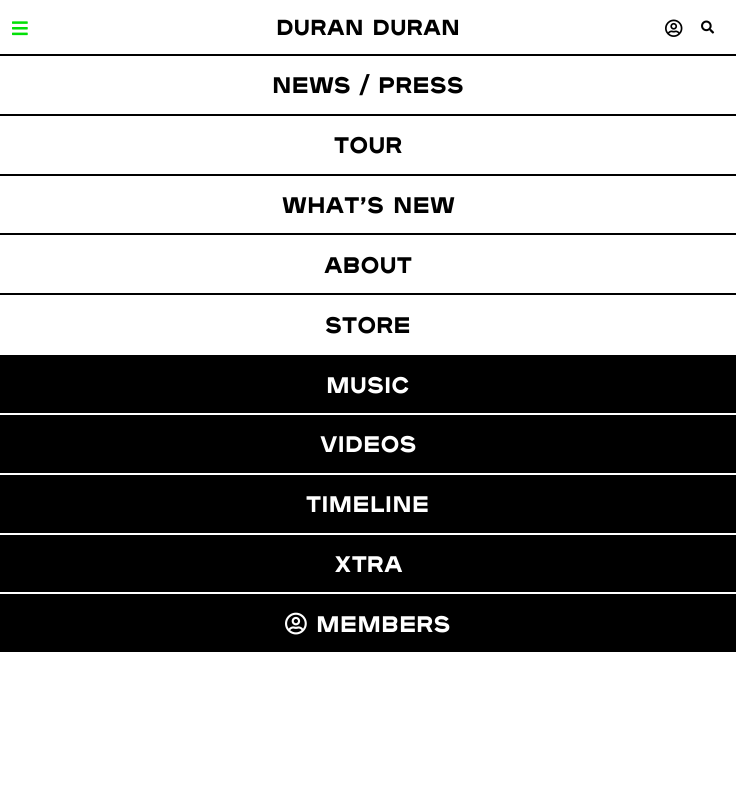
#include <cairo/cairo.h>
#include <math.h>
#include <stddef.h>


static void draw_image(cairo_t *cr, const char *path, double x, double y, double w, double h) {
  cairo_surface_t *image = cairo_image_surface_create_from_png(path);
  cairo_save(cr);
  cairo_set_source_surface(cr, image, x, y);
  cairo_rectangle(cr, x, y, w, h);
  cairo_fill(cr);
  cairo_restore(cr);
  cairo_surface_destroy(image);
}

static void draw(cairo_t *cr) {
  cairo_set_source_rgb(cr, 1, 1, 1);
  cairo_paint(cr);
  draw_image(cr, "images/1.png", 665, 19, 18, 18);
  draw_image(cr, "images/2.png", 701, 20, 14, 14);
  draw_image(cr, "images/3.png", 12, 21, 16, 15);
  cairo_set_source_rgb(cr, 0, 0, 0);
  cairo_rectangle(cr, 0, 54, 736, 2);
  cairo_fill(cr);
  cairo_rectangle(cr, 0, 114, 736, 2);
  cairo_fill(cr);
  cairo_rectangle(cr, 0, 174, 736, 2);
  cairo_fill(cr);
  cairo_rectangle(cr, 0, 233, 736, 2);
  cairo_fill(cr);
  cairo_rectangle(cr, 0, 293, 736, 2);
  cairo_fill(cr);
  cairo_rectangle(cr, 0, 355, 736, 58);
  cairo_fill(cr);
  cairo_rectangle(cr, 0, 415, 736, 58);
  cairo_fill(cr);
  cairo_rectangle(cr, 0, 475, 736, 58);
  cairo_fill(cr);
  cairo_rectangle(cr, 0, 535, 736, 57);
  cairo_fill(cr);
  cairo_rectangle(cr, 0, 594, 736, 58);
  cairo_fill(cr);
  draw_image(cr, "images/4.png", 285, 612, 22, 23);
  cairo_select_font_face(cr, "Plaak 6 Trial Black", CAIRO_FONT_SLANT_NORMAL, CAIRO_FONT_WEIGHT_NORMAL);
  cairo_set_font_size(cr, 21.75);
  cairo_move_to(cr, 276, 35);
  cairo_show_text(cr, "Duran Duran");
  cairo_set_font_size(cr, 22.5);
  cairo_move_to(cr, 272, 93);
  cairo_show_text(cr, "News");
  cairo_select_font_face(cr, "Montserrat", CAIRO_FONT_SLANT_NORMAL, CAIRO_FONT_WEIGHT_BOLD);
  cairo_move_to(cr, 360, 93);
  cairo_show_text(cr, "/");
  cairo_select_font_face(cr, "Plaak 6 Trial Black", CAIRO_FONT_SLANT_NORMAL, CAIRO_FONT_WEIGHT_NORMAL);
  cairo_move_to(cr, 378, 93);
  cairo_show_text(cr, "Press");
  cairo_move_to(cr, 334, 153);
  cairo_show_text(cr, "Tour");
  cairo_move_to(cr, 282, 213);
  cairo_show_text(cr, "What’s New");
  cairo_move_to(cr, 324, 273);
  cairo_show_text(cr, "About");
  cairo_move_to(cr, 325, 333);
  cairo_show_text(cr, "Store");
  cairo_set_source_rgb(cr, 1, 1, 1);
  cairo_move_to(cr, 326, 393);
  cairo_show_text(cr, "Music");
  cairo_move_to(cr, 320, 452);
  cairo_show_text(cr, "Videos");
  cairo_move_to(cr, 306, 512);
  cairo_show_text(cr, "Timeline");
  cairo_move_to(cr, 334, 572);
  cairo_show_text(cr, "Xtra");
  cairo_move_to(cr, 316, 632);
  cairo_show_text(cr, "Members");
}

int main(void) {
  cairo_surface_t *surface = cairo_image_surface_create(CAIRO_FORMAT_RGB24, 736, 788);
  cairo_t *cr = cairo_create(surface);
  cairo_font_options_t *options = cairo_font_options_create();
  cairo_font_options_set_hint_metrics(options, CAIRO_HINT_METRICS_OFF);
  cairo_font_options_set_hint_style(options, CAIRO_HINT_STYLE_NONE);
  cairo_set_font_options(cr, options);
  cairo_set_miter_limit(cr, 4);
  draw(cr);
  cairo_surface_write_to_png(surface, "out.png");
  cairo_font_options_destroy(options);
  cairo_destroy(cr);
  cairo_surface_destroy(surface);
  return 0;
}
